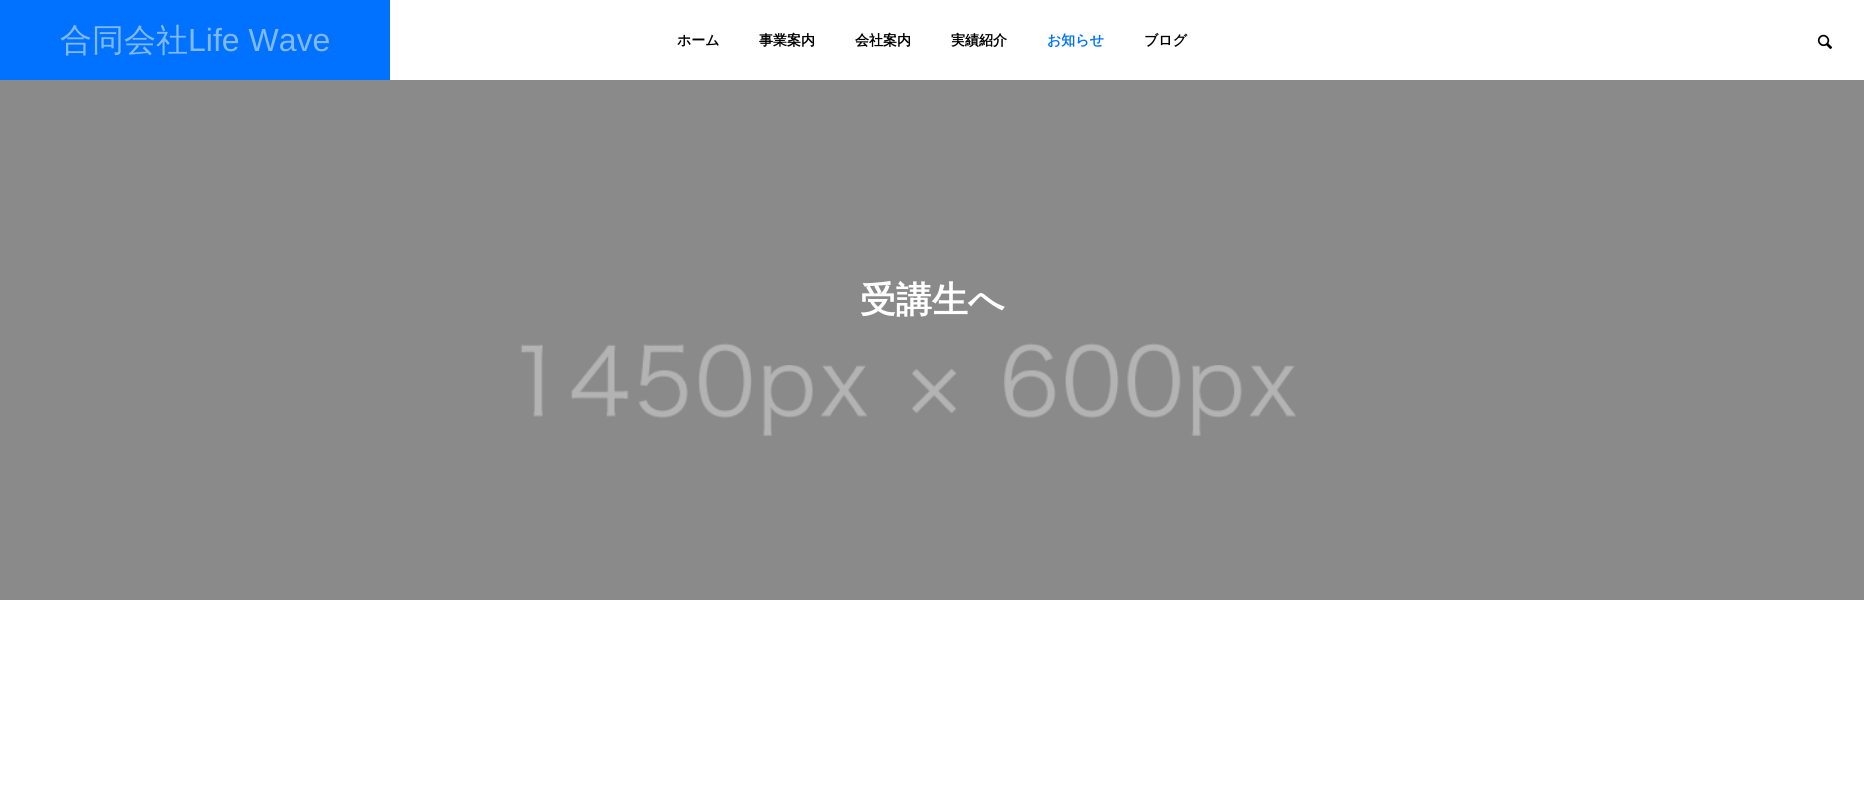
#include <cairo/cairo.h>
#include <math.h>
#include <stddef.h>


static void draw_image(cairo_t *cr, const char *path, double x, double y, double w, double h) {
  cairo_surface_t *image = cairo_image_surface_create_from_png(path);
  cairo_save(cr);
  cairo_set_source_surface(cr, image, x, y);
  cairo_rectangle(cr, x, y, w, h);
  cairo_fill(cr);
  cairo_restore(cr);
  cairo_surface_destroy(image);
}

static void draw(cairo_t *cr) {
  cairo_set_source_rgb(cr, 1, 1, 1);
  cairo_paint(cr);
  cairo_set_source_rgb(cr, 0, 114 / 255.0, 1);
  cairo_rectangle(cr, 0, 0, 390, 80);
  cairo_fill(cr);
  draw_image(cr, "images/1.png", 1817, 34, 16, 15);
  draw_image(cr, "images/2.png", 0, 80, 1864, 520);
  cairo_select_font_face(cr, "WenQuanYi Zen Hei Medium", CAIRO_FONT_SLANT_NORMAL, CAIRO_FONT_WEIGHT_NORMAL);
  cairo_set_font_size(cr, 32);
  cairo_set_source_rgb(cr, 128 / 255.0, 185 / 255.0, 1);
  cairo_move_to(cr, 60, 51);
  cairo_show_text(cr, "合同会社");
  cairo_select_font_face(cr, "Liberation Sans", CAIRO_FONT_SLANT_NORMAL, CAIRO_FONT_WEIGHT_NORMAL);
  cairo_move_to(cr, 188, 51);
  cairo_show_text(cr, "Life Wave");
  cairo_select_font_face(cr, "WenQuanYi Zen Hei", CAIRO_FONT_SLANT_NORMAL, CAIRO_FONT_WEIGHT_BOLD);
  cairo_set_font_size(cr, 14);
  cairo_set_source_rgb(cr, 0, 0, 0);
  cairo_move_to(cr, 677, 45);
  cairo_show_text(cr, "ホーム");
  cairo_move_to(cr, 759, 45);
  cairo_show_text(cr, "事業案内");
  cairo_move_to(cr, 855, 45);
  cairo_show_text(cr, "会社案内");
  cairo_move_to(cr, 951, 45);
  cairo_show_text(cr, "実績紹介");
  cairo_set_source_rgb(cr, 0, 114 / 255.0, 1);
  cairo_move_to(cr, 1047, 45);
  cairo_show_text(cr, "お知らせ");
  cairo_set_source_rgb(cr, 0, 0, 0);
  cairo_move_to(cr, 1144, 45);
  cairo_show_text(cr, "ブログ");
  cairo_set_font_size(cr, 36);
  cairo_set_source_rgb(cr, 1, 1, 1);
  cairo_move_to(cr, 860, 312);
  cairo_show_text(cr, "受講生へ");
}

int main(void) {
  cairo_surface_t *surface = cairo_image_surface_create(CAIRO_FORMAT_RGB24, 1864, 797);
  cairo_t *cr = cairo_create(surface);
  cairo_font_options_t *options = cairo_font_options_create();
  cairo_font_options_set_hint_metrics(options, CAIRO_HINT_METRICS_OFF);
  cairo_font_options_set_hint_style(options, CAIRO_HINT_STYLE_NONE);
  cairo_set_font_options(cr, options);
  cairo_set_miter_limit(cr, 4);
  draw(cr);
  cairo_surface_write_to_png(surface, "out.png");
  cairo_font_options_destroy(options);
  cairo_destroy(cr);
  cairo_surface_destroy(surface);
  return 0;
}
